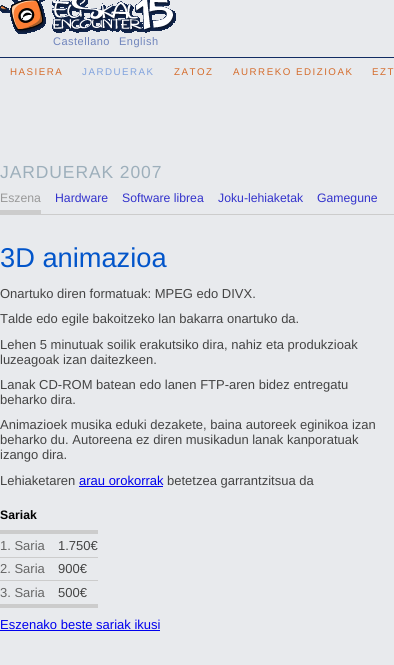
#include <cairo/cairo.h>
#include <math.h>
#include <stddef.h>


static void draw_spaced(cairo_t *cr, double x, double y, const char *s, double letter, double word) {
  cairo_move_to(cr, x, y);
  while (*s) {
    char ch[5] = {0};
    int n = 0;
    do ch[n++] = *s++; while ((*s & 0xC0) == 0x80);
    cairo_show_text(cr, ch);
    cairo_rel_move_to(cr, letter + word * (*ch == ' '), 0);
  }
}

static void draw_image(cairo_t *cr, const char *path, double x, double y, double w, double h) {
  cairo_surface_t *image = cairo_image_surface_create_from_png(path);
  cairo_save(cr);
  cairo_set_source_surface(cr, image, x, y);
  cairo_rectangle(cr, x, y, w, h);
  cairo_fill(cr);
  cairo_restore(cr);
  cairo_surface_destroy(image);
}

static void draw(cairo_t *cr) {
  cairo_set_source_rgb(cr, 232 / 255.0, 234 / 255.0, 237 / 255.0);
  cairo_paint(cr);
  draw_image(cr, "images/1.png", 0, 0, 176, 34);
  cairo_set_source_rgb(cr, 17 / 255.0, 44 / 255.0, 98 / 255.0);
  cairo_rectangle(cr, 0, 57, 394, 1);
  cairo_fill(cr);
  cairo_set_source_rgb(cr, 204 / 255.0, 204 / 255.0, 204 / 255.0);
  cairo_rectangle(cr, 0, 214, 394, 1);
  cairo_fill(cr);
  cairo_rectangle(cr, 0, 210, 41, 4);
  cairo_fill(cr);
  cairo_set_source_rgb(cr, 0, 0, 238 / 255.0);
  cairo_rectangle(cr, 79, 486, 84, 1);
  cairo_fill(cr);
  cairo_set_source_rgb(cr, 204 / 255.0, 204 / 255.0, 204 / 255.0);
  cairo_rectangle(cr, 0, 530, 98, 4);
  cairo_fill(cr);
  cairo_rectangle(cr, 0, 605, 98, 3);
  cairo_fill(cr);
  cairo_rectangle(cr, 0, 557, 98, 1);
  cairo_fill(cr);
  cairo_rectangle(cr, 0, 580, 98, 1);
  cairo_fill(cr);
  cairo_rectangle(cr, 0, 604, 98, 1);
  cairo_fill(cr);
  cairo_set_source_rgb(cr, 0, 0, 238 / 255.0);
  cairo_rectangle(cr, 0, 630, 160, 1);
  cairo_fill(cr);
  cairo_select_font_face(cr, "Liberation Sans", CAIRO_FONT_SLANT_NORMAL, CAIRO_FONT_WEIGHT_NORMAL);
  cairo_set_font_size(cr, 11);
  cairo_set_source_rgb(cr, 111 / 255.0, 132 / 255.0, 188 / 255.0);
  draw_spaced(cr, 53, 45, "Castellano", 0.5, 0);
  draw_spaced(cr, 119, 45, "English", 0.5, 0);
  cairo_set_font_size(cr, 9.75);
  cairo_set_source_rgb(cr, 213 / 255.0, 108 / 255.0, 44 / 255.0);
  draw_spaced(cr, 10, 75, "HASIERA", 1.5, 0);
  cairo_set_source_rgb(cr, 128 / 255.0, 162 / 255.0, 221 / 255.0);
  draw_spaced(cr, 82, 75, "JARDUERAK", 1.5, 0);
  cairo_set_source_rgb(cr, 213 / 255.0, 108 / 255.0, 44 / 255.0);
  draw_spaced(cr, 174, 75, "ZATOZ", 1.5, 0);
  draw_spaced(cr, 233, 75, "AURREKO EDIZIOAK", 1.5, 0);
  draw_spaced(cr, 372, 75, "EZT", 1.5, 0);
  cairo_set_font_size(cr, 17.5);
  cairo_set_source_rgb(cr, 157 / 255.0, 175 / 255.0, 187 / 255.0);
  draw_spaced(cr, 0, 178, "JARDUERAK 2007", 0.9, 0);
  cairo_set_font_size(cr, 12.25);
  cairo_set_source_rgb(cr, 153 / 255.0, 153 / 255.0, 153 / 255.0);
  cairo_move_to(cr, 0, 202);
  cairo_show_text(cr, "Eszena");
  cairo_set_source_rgb(cr, 51 / 255.0, 51 / 255.0, 204 / 255.0);
  cairo_move_to(cr, 55, 202);
  cairo_show_text(cr, "Hardware");
  cairo_move_to(cr, 122, 202);
  cairo_show_text(cr, "Software librea");
  cairo_move_to(cr, 218, 202);
  cairo_show_text(cr, "Joku-lehiaketak");
  cairo_move_to(cr, 317, 202);
  cairo_show_text(cr, "Gamegune");
  cairo_set_font_size(cr, 27.25);
  cairo_set_source_rgb(cr, 2 / 255.0, 85 / 255.0, 202 / 255.0);
  cairo_move_to(cr, 0, 267);
  cairo_show_text(cr, "3D animazioa");
  cairo_set_font_size(cr, 13);
  cairo_set_source_rgb(cr, 68 / 255.0, 68 / 255.0, 68 / 255.0);
  cairo_move_to(cr, 0, 298);
  cairo_show_text(cr, "Onartuko diren formatuak: MPEG edo DIVX.");
  cairo_move_to(cr, 0, 323);
  cairo_show_text(cr, "Talde edo egile bakoitzeko lan bakarra onartuko da.");
  cairo_move_to(cr, 0, 349);
  cairo_show_text(cr, "Lehen 5 minutuak soilik erakutsiko dira, nahiz eta produkzioak");
  cairo_move_to(cr, 0, 364);
  cairo_show_text(cr, "luzeagoak izan daitezkeen.");
  cairo_move_to(cr, 0, 389);
  cairo_show_text(cr, "Lanak CD-ROM batean edo lanen FTP-aren bidez entregatu");
  cairo_move_to(cr, 0, 404);
  cairo_show_text(cr, "beharko dira.");
  cairo_move_to(cr, 0, 429);
  cairo_show_text(cr, "Animazioek musika eduki dezakete, baina autoreek eginikoa izan");
  cairo_move_to(cr, 0, 444);
  cairo_show_text(cr, "beharko du. Autoreena ez diren musikadun lanak kanporatuak");
  cairo_move_to(cr, 0, 459);
  cairo_show_text(cr, "izango dira.");
  cairo_move_to(cr, 0, 485);
  cairo_show_text(cr, "Lehiaketaren");
  cairo_set_source_rgb(cr, 0, 0, 238 / 255.0);
  cairo_move_to(cr, 79, 485);
  cairo_show_text(cr, "arau orokorrak");
  cairo_set_source_rgb(cr, 68 / 255.0, 68 / 255.0, 68 / 255.0);
  cairo_move_to(cr, 167, 485);
  cairo_show_text(cr, "betetzea garrantzitsua da");
  cairo_select_font_face(cr, "Liberation Sans", CAIRO_FONT_SLANT_NORMAL, CAIRO_FONT_WEIGHT_BOLD);
  cairo_set_font_size(cr, 12.25);
  cairo_set_source_rgb(cr, 0, 0, 0);
  cairo_move_to(cr, 0, 519);
  cairo_show_text(cr, "Sariak");
  cairo_select_font_face(cr, "Liberation Sans", CAIRO_FONT_SLANT_NORMAL, CAIRO_FONT_WEIGHT_NORMAL);
  cairo_set_font_size(cr, 13);
  cairo_set_source_rgb(cr, 102 / 255.0, 102 / 255.0, 102 / 255.0);
  cairo_move_to(cr, 0, 550);
  cairo_show_text(cr, "1. Saria");
  cairo_set_source_rgb(cr, 68 / 255.0, 68 / 255.0, 68 / 255.0);
  cairo_move_to(cr, 58, 550);
  cairo_show_text(cr, "1.750€");
  cairo_set_source_rgb(cr, 102 / 255.0, 102 / 255.0, 102 / 255.0);
  cairo_move_to(cr, 0, 573);
  cairo_show_text(cr, "2. Saria");
  cairo_set_source_rgb(cr, 68 / 255.0, 68 / 255.0, 68 / 255.0);
  cairo_move_to(cr, 58, 573);
  cairo_show_text(cr, "900€");
  cairo_set_source_rgb(cr, 102 / 255.0, 102 / 255.0, 102 / 255.0);
  cairo_move_to(cr, 0, 597);
  cairo_show_text(cr, "3. Saria");
  cairo_set_source_rgb(cr, 68 / 255.0, 68 / 255.0, 68 / 255.0);
  cairo_move_to(cr, 58, 597);
  cairo_show_text(cr, "500€");
  cairo_set_source_rgb(cr, 0, 0, 238 / 255.0);
  cairo_move_to(cr, 0, 629);
  cairo_show_text(cr, "Eszenako beste sariak ikusi");
}

int main(void) {
  cairo_surface_t *surface = cairo_image_surface_create(CAIRO_FORMAT_RGB24, 394, 665);
  cairo_t *cr = cairo_create(surface);
  cairo_font_options_t *options = cairo_font_options_create();
  cairo_font_options_set_hint_metrics(options, CAIRO_HINT_METRICS_OFF);
  cairo_font_options_set_hint_style(options, CAIRO_HINT_STYLE_NONE);
  cairo_set_font_options(cr, options);
  cairo_set_miter_limit(cr, 4);
  draw(cr);
  cairo_surface_write_to_png(surface, "out.png");
  cairo_font_options_destroy(options);
  cairo_destroy(cr);
  cairo_surface_destroy(surface);
  return 0;
}
